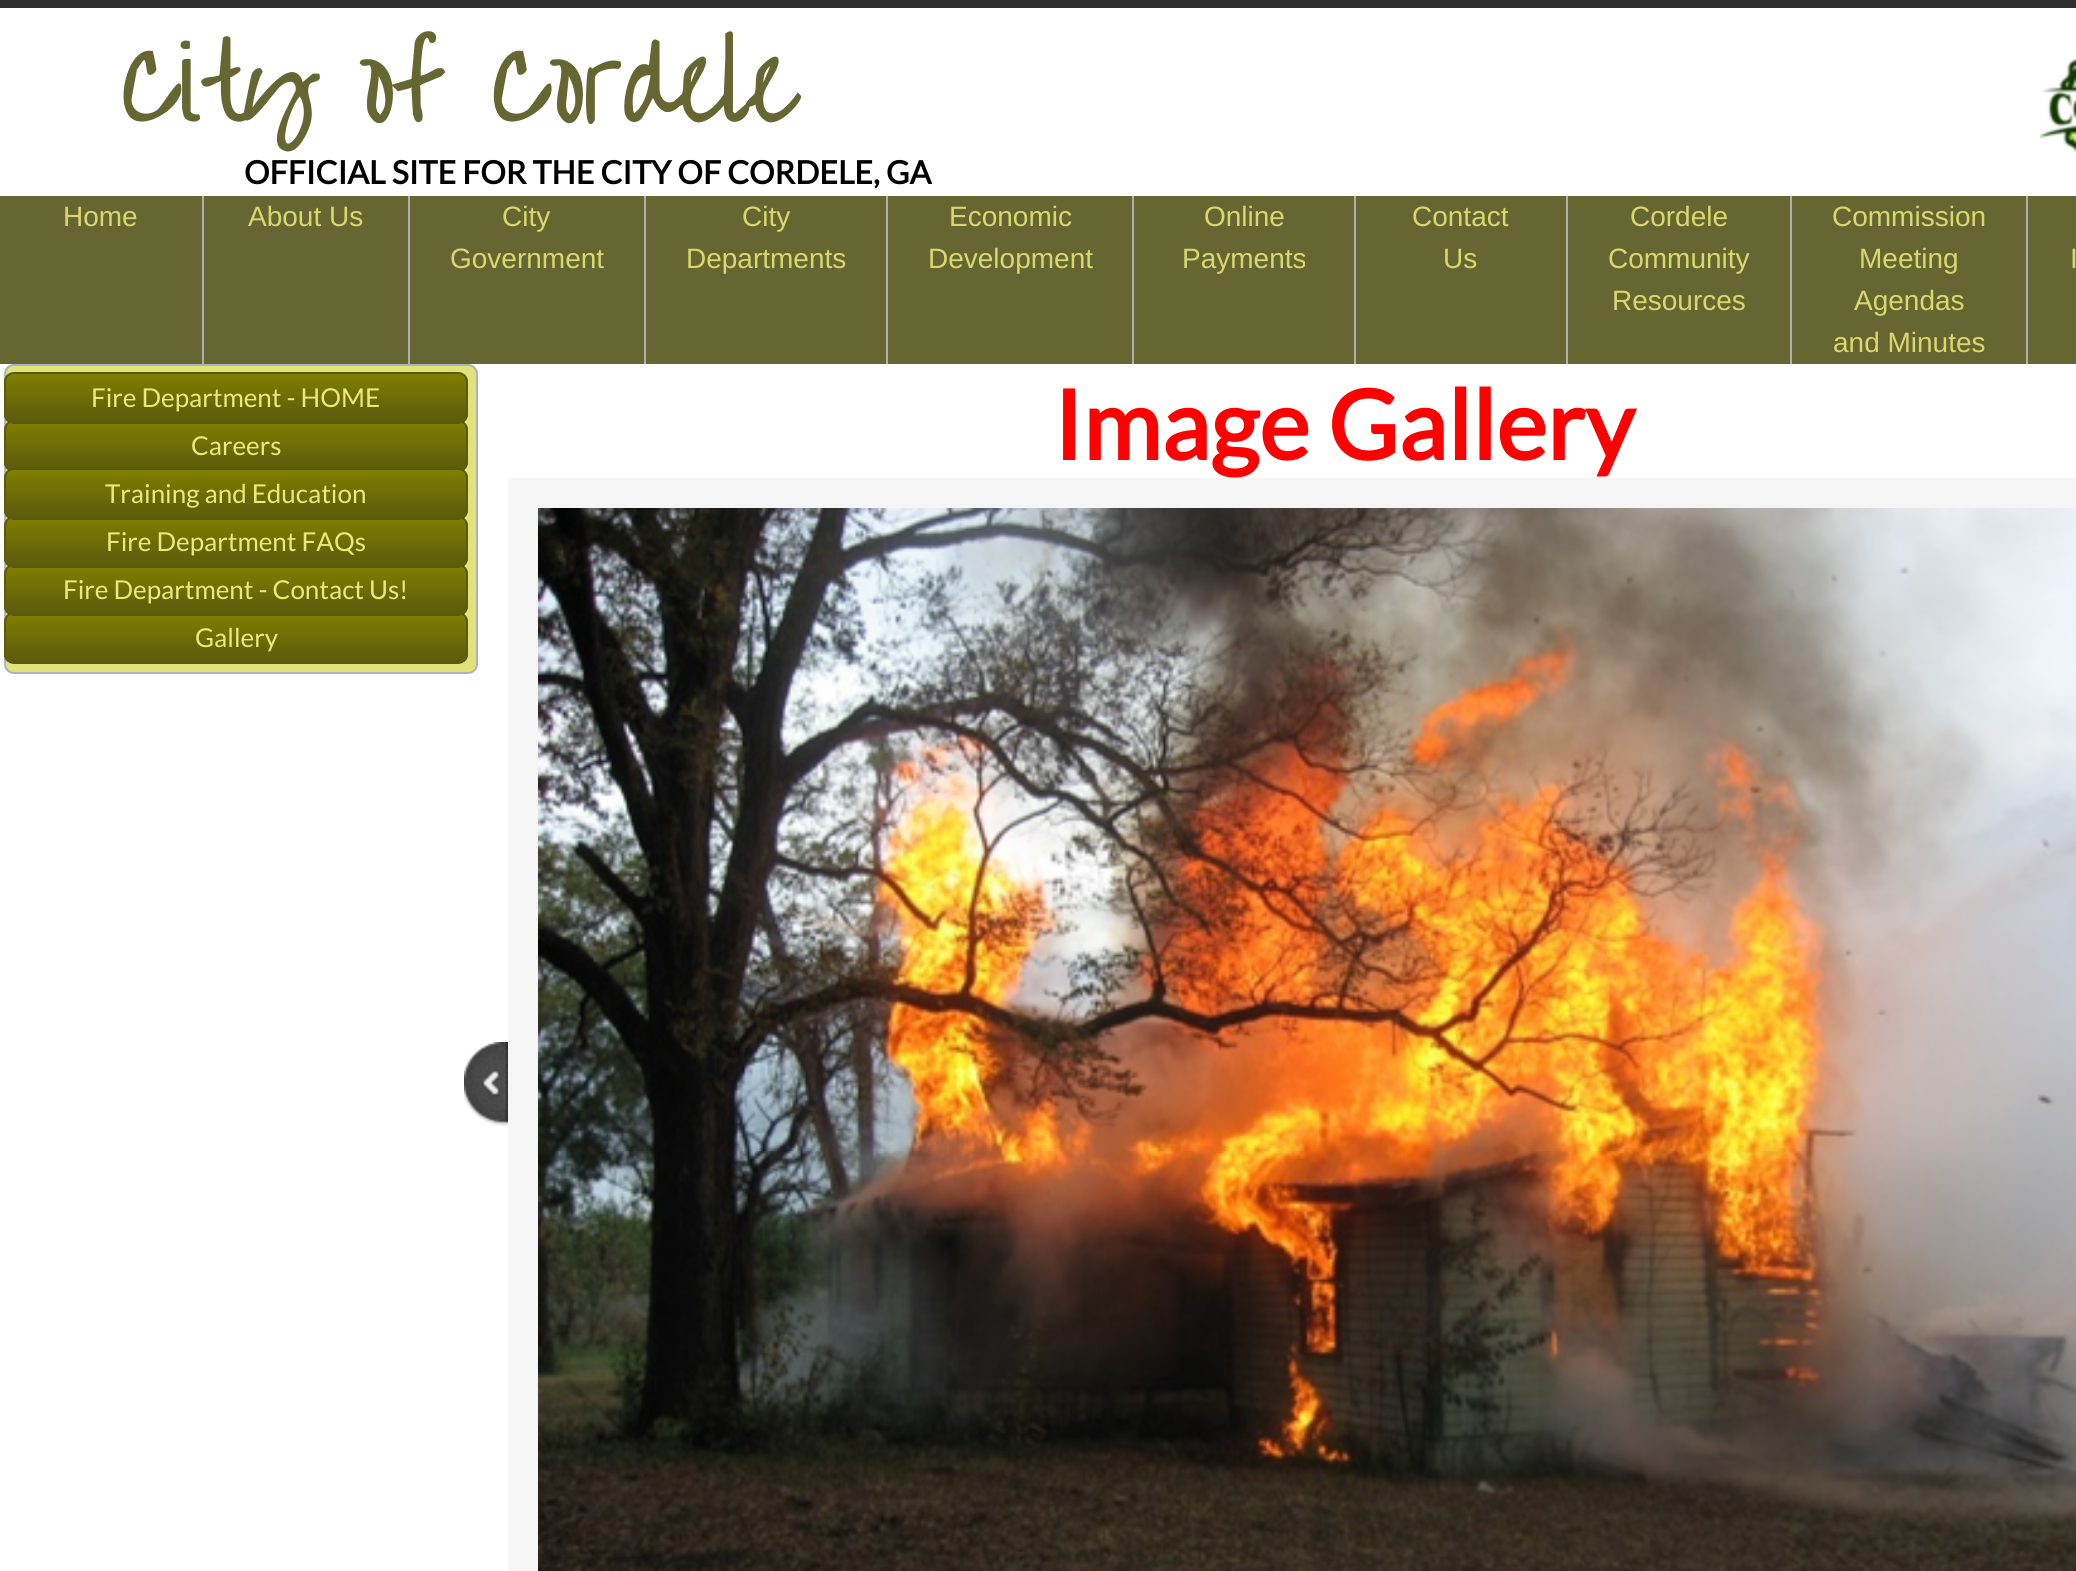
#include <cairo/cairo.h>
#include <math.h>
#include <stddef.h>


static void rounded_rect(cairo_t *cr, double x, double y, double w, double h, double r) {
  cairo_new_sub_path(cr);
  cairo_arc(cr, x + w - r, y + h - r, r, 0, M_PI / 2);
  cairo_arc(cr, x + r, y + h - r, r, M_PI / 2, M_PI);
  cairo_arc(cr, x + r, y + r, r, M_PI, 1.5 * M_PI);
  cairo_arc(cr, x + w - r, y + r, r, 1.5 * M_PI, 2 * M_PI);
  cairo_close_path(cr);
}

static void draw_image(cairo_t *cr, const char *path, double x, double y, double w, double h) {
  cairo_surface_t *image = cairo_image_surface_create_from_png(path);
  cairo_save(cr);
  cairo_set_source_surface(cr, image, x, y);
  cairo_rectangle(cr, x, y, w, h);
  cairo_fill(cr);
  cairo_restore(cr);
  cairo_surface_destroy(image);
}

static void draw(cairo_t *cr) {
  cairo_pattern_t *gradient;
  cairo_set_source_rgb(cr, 1, 1, 1);
  cairo_paint(cr);
  cairo_set_source_rgb(cr, 47 / 255.0, 47 / 255.0, 47 / 255.0);
  cairo_rectangle(cr, 0, 0, 2076, 8);
  cairo_fill(cr);
  draw_image(cr, "images/1.png", 2040, 59, 36, 95);
  cairo_set_source_rgb(cr, 102 / 255.0, 102 / 255.0, 51 / 255.0);
  cairo_rectangle(cr, 0, 196, 202, 168);
  cairo_fill(cr);
  cairo_set_source_rgb(cr, 174 / 255.0, 174 / 255.0, 174 / 255.0);
  cairo_rectangle(cr, 202, 196, 2, 168);
  cairo_fill(cr);
  cairo_set_source_rgb(cr, 102 / 255.0, 102 / 255.0, 51 / 255.0);
  cairo_rectangle(cr, 204, 196, 204, 168);
  cairo_fill(cr);
  cairo_set_source_rgb(cr, 174 / 255.0, 174 / 255.0, 174 / 255.0);
  cairo_rectangle(cr, 408, 196, 2, 168);
  cairo_fill(cr);
  cairo_set_source_rgb(cr, 102 / 255.0, 102 / 255.0, 51 / 255.0);
  cairo_rectangle(cr, 410, 196, 234, 168);
  cairo_fill(cr);
  cairo_set_source_rgb(cr, 174 / 255.0, 174 / 255.0, 174 / 255.0);
  cairo_rectangle(cr, 644, 196, 2, 168);
  cairo_fill(cr);
  cairo_set_source_rgb(cr, 102 / 255.0, 102 / 255.0, 51 / 255.0);
  cairo_rectangle(cr, 646, 196, 240, 168);
  cairo_fill(cr);
  cairo_set_source_rgb(cr, 174 / 255.0, 174 / 255.0, 174 / 255.0);
  cairo_rectangle(cr, 886, 196, 2, 168);
  cairo_fill(cr);
  cairo_set_source_rgb(cr, 102 / 255.0, 102 / 255.0, 51 / 255.0);
  cairo_rectangle(cr, 888, 196, 244, 168);
  cairo_fill(cr);
  cairo_set_source_rgb(cr, 174 / 255.0, 174 / 255.0, 174 / 255.0);
  cairo_rectangle(cr, 1132, 196, 2, 168);
  cairo_fill(cr);
  cairo_set_source_rgb(cr, 102 / 255.0, 102 / 255.0, 51 / 255.0);
  cairo_rectangle(cr, 1134, 196, 220, 168);
  cairo_fill(cr);
  cairo_set_source_rgb(cr, 174 / 255.0, 174 / 255.0, 174 / 255.0);
  cairo_rectangle(cr, 1354, 196, 2, 168);
  cairo_fill(cr);
  cairo_set_source_rgb(cr, 102 / 255.0, 102 / 255.0, 51 / 255.0);
  cairo_rectangle(cr, 1356, 196, 210, 168);
  cairo_fill(cr);
  cairo_set_source_rgb(cr, 174 / 255.0, 174 / 255.0, 174 / 255.0);
  cairo_rectangle(cr, 1566, 196, 2, 168);
  cairo_fill(cr);
  cairo_set_source_rgb(cr, 102 / 255.0, 102 / 255.0, 51 / 255.0);
  cairo_rectangle(cr, 1568, 196, 222, 168);
  cairo_fill(cr);
  cairo_set_source_rgb(cr, 174 / 255.0, 174 / 255.0, 174 / 255.0);
  cairo_rectangle(cr, 1790, 196, 2, 168);
  cairo_fill(cr);
  cairo_set_source_rgb(cr, 102 / 255.0, 102 / 255.0, 51 / 255.0);
  cairo_rectangle(cr, 1792, 196, 234, 168);
  cairo_fill(cr);
  cairo_set_source_rgb(cr, 174 / 255.0, 174 / 255.0, 174 / 255.0);
  cairo_rectangle(cr, 2026, 196, 2, 168);
  cairo_fill(cr);
  cairo_set_source_rgb(cr, 102 / 255.0, 102 / 255.0, 51 / 255.0);
  cairo_rectangle(cr, 2028, 196, 48, 168);
  cairo_fill(cr);
  cairo_set_source_rgb(cr, 226 / 255.0, 226 / 255.0, 122 / 255.0);
  rounded_rect(cr, 5, 365, 472, 308, 9);
  cairo_fill_preserve(cr);
  cairo_set_source_rgb(cr, 169 / 255.0, 180 / 255.0, 187 / 255.0);
  cairo_stroke(cr);
  cairo_save(cr);
  rounded_rect(cr, 4, 420, 464, 52, 10);
  cairo_clip(cr);
  gradient = cairo_pattern_create_linear(236, 422, 236, 470);
  cairo_pattern_add_color_stop_rgba(gradient, 0, 127 / 255.0, 127 / 255.0, 0, 1);
  cairo_pattern_add_color_stop_rgba(gradient, 1, 91 / 255.0, 91 / 255.0, 13 / 255.0, 1);
  cairo_set_source(cr, gradient);
  cairo_pattern_destroy(gradient);
  cairo_rectangle(cr, 4, 422, 464, 48);
  cairo_fill(cr);
  cairo_restore(cr);
  rounded_rect(cr, 5, 421, 462, 50, 9);
  cairo_set_source_rgb(cr, 91 / 255.0, 91 / 255.0, 16 / 255.0);
  cairo_stroke(cr);
  cairo_save(cr);
  rounded_rect(cr, 4, 372, 464, 52, 10);
  cairo_clip(cr);
  gradient = cairo_pattern_create_linear(236, 374, 236, 422);
  cairo_pattern_add_color_stop_rgba(gradient, 0, 127 / 255.0, 127 / 255.0, 0, 1);
  cairo_pattern_add_color_stop_rgba(gradient, 1, 91 / 255.0, 91 / 255.0, 13 / 255.0, 1);
  cairo_set_source(cr, gradient);
  cairo_pattern_destroy(gradient);
  cairo_rectangle(cr, 4, 374, 464, 48);
  cairo_fill(cr);
  cairo_restore(cr);
  rounded_rect(cr, 5, 373, 462, 50, 9);
  cairo_stroke(cr);
  cairo_save(cr);
  rounded_rect(cr, 4, 612, 464, 52, 10);
  cairo_clip(cr);
  gradient = cairo_pattern_create_linear(236, 614, 236, 662);
  cairo_pattern_add_color_stop_rgba(gradient, 0, 127 / 255.0, 127 / 255.0, 0, 1);
  cairo_pattern_add_color_stop_rgba(gradient, 1, 91 / 255.0, 91 / 255.0, 13 / 255.0, 1);
  cairo_set_source(cr, gradient);
  cairo_pattern_destroy(gradient);
  cairo_rectangle(cr, 4, 614, 464, 48);
  cairo_fill(cr);
  cairo_restore(cr);
  rounded_rect(cr, 5, 613, 462, 50, 9);
  cairo_stroke(cr);
  cairo_save(cr);
  rounded_rect(cr, 4, 564, 464, 52, 10);
  cairo_clip(cr);
  gradient = cairo_pattern_create_linear(236, 566, 236, 614);
  cairo_pattern_add_color_stop_rgba(gradient, 0, 127 / 255.0, 127 / 255.0, 0, 1);
  cairo_pattern_add_color_stop_rgba(gradient, 1, 91 / 255.0, 91 / 255.0, 13 / 255.0, 1);
  cairo_set_source(cr, gradient);
  cairo_pattern_destroy(gradient);
  cairo_rectangle(cr, 4, 566, 464, 48);
  cairo_fill(cr);
  cairo_restore(cr);
  rounded_rect(cr, 5, 565, 462, 50, 9);
  cairo_stroke(cr);
  cairo_save(cr);
  rounded_rect(cr, 4, 516, 464, 52, 10);
  cairo_clip(cr);
  gradient = cairo_pattern_create_linear(236, 518, 236, 566);
  cairo_pattern_add_color_stop_rgba(gradient, 0, 127 / 255.0, 127 / 255.0, 0, 1);
  cairo_pattern_add_color_stop_rgba(gradient, 1, 91 / 255.0, 91 / 255.0, 13 / 255.0, 1);
  cairo_set_source(cr, gradient);
  cairo_pattern_destroy(gradient);
  cairo_rectangle(cr, 4, 518, 464, 48);
  cairo_fill(cr);
  cairo_restore(cr);
  rounded_rect(cr, 5, 517, 462, 50, 9);
  cairo_stroke(cr);
  cairo_save(cr);
  rounded_rect(cr, 4, 468, 464, 52, 10);
  cairo_clip(cr);
  gradient = cairo_pattern_create_linear(236, 470, 236, 518);
  cairo_pattern_add_color_stop_rgba(gradient, 0, 127 / 255.0, 127 / 255.0, 0, 1);
  cairo_pattern_add_color_stop_rgba(gradient, 1, 91 / 255.0, 91 / 255.0, 13 / 255.0, 1);
  cairo_set_source(cr, gradient);
  cairo_pattern_destroy(gradient);
  cairo_rectangle(cr, 4, 470, 464, 48);
  cairo_fill(cr);
  cairo_restore(cr);
  rounded_rect(cr, 5, 469, 462, 50, 9);
  cairo_stroke(cr);
  draw_image(cr, "images/2.png", 464, 1042, 44, 84);
  cairo_rectangle(cr, 523, 493, 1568, 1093);
  cairo_set_source_rgb(cr, 245 / 255.0, 245 / 255.0, 245 / 255.0);
  cairo_set_line_width(cr, 30);
  cairo_stroke(cr);
  draw_image(cr, "images/3.png", 538, 508, 1538, 1063);
  cairo_select_font_face(cr, "Over the Rainbow", CAIRO_FONT_SLANT_NORMAL, CAIRO_FONT_WEIGHT_BOLD);
  cairo_set_font_size(cr, 96);
  cairo_set_source_rgb(cr, 102 / 255.0, 102 / 255.0, 51 / 255.0);
  cairo_move_to(cr, 121, 122);
  cairo_show_text(cr, "City of Cordele");
  cairo_select_font_face(cr, "Lato", CAIRO_FONT_SLANT_NORMAL, CAIRO_FONT_WEIGHT_BOLD);
  cairo_set_font_size(cr, 32);
  cairo_set_source_rgb(cr, 0, 0, 0);
  cairo_move_to(cr, 244, 184);
  cairo_show_text(cr, "OFFICIAL SITE FOR THE CITY OF CORDELE, GA");
  cairo_select_font_face(cr, "Liberation Sans", CAIRO_FONT_SLANT_NORMAL, CAIRO_FONT_WEIGHT_NORMAL);
  cairo_set_font_size(cr, 28);
  cairo_set_source_rgb(cr, 216 / 255.0, 216 / 255.0, 108 / 255.0);
  cairo_move_to(cr, 63, 226);
  cairo_show_text(cr, "Home");
  cairo_move_to(cr, 248, 226);
  cairo_show_text(cr, "About Us");
  cairo_move_to(cr, 502, 226);
  cairo_show_text(cr, "City");
  cairo_move_to(cr, 450, 268);
  cairo_show_text(cr, "Government");
  cairo_move_to(cr, 742, 226);
  cairo_show_text(cr, "City");
  cairo_move_to(cr, 686, 268);
  cairo_show_text(cr, "Departments");
  cairo_move_to(cr, 949, 226);
  cairo_show_text(cr, "Economic");
  cairo_move_to(cr, 928, 268);
  cairo_show_text(cr, "Development");
  cairo_move_to(cr, 1204, 226);
  cairo_show_text(cr, "Online");
  cairo_move_to(cr, 1182, 268);
  cairo_show_text(cr, "Payments");
  cairo_move_to(cr, 1412, 226);
  cairo_show_text(cr, "Contact");
  cairo_move_to(cr, 1443, 268);
  cairo_show_text(cr, "Us");
  cairo_move_to(cr, 1630, 226);
  cairo_show_text(cr, "Cordele");
  cairo_move_to(cr, 1608, 268);
  cairo_show_text(cr, "Community");
  cairo_move_to(cr, 1612, 310);
  cairo_show_text(cr, "Resources");
  cairo_move_to(cr, 1832, 226);
  cairo_show_text(cr, "Commission");
  cairo_move_to(cr, 1859, 268);
  cairo_show_text(cr, "Meeting");
  cairo_move_to(cr, 1854, 310);
  cairo_show_text(cr, "Agendas");
  cairo_move_to(cr, 1833, 352);
  cairo_show_text(cr, "and Minutes");
  cairo_move_to(cr, 2070, 268);
  cairo_show_text(cr, "I");
  cairo_select_font_face(cr, "Lato", CAIRO_FONT_SLANT_NORMAL, CAIRO_FONT_WEIGHT_NORMAL);
  cairo_set_font_size(cr, 26);
  cairo_set_source_rgb(cr, 234 / 255.0, 234 / 255.0, 124 / 255.0);
  cairo_move_to(cr, 91, 407);
  cairo_show_text(cr, "Fire Department - HOME");
  cairo_select_font_face(cr, "Lato", CAIRO_FONT_SLANT_NORMAL, CAIRO_FONT_WEIGHT_BOLD);
  cairo_set_font_size(cr, 96);
  cairo_set_source_rgb(cr, 1, 0, 0);
  cairo_move_to(cr, 1053, 460);
  cairo_show_text(cr, "Image Gallery");
  cairo_select_font_face(cr, "Lato", CAIRO_FONT_SLANT_NORMAL, CAIRO_FONT_WEIGHT_NORMAL);
  cairo_set_font_size(cr, 26);
  cairo_set_source_rgb(cr, 234 / 255.0, 234 / 255.0, 124 / 255.0);
  cairo_move_to(cr, 191, 455);
  cairo_show_text(cr, "Careers");
  cairo_move_to(cr, 105, 503);
  cairo_show_text(cr, "Training and Education");
  cairo_move_to(cr, 106, 551);
  cairo_show_text(cr, "Fire Department FAQs");
  cairo_move_to(cr, 63, 599);
  cairo_show_text(cr, "Fire Department - Contact Us!");
  cairo_move_to(cr, 195, 647);
  cairo_show_text(cr, "Gallery");
}

int main(void) {
  cairo_surface_t *surface = cairo_image_surface_create(CAIRO_FORMAT_RGB24, 2076, 1571);
  cairo_t *cr = cairo_create(surface);
  cairo_font_options_t *options = cairo_font_options_create();
  cairo_font_options_set_hint_metrics(options, CAIRO_HINT_METRICS_OFF);
  cairo_font_options_set_hint_style(options, CAIRO_HINT_STYLE_NONE);
  cairo_set_font_options(cr, options);
  cairo_set_miter_limit(cr, 4);
  draw(cr);
  cairo_surface_write_to_png(surface, "out.png");
  cairo_font_options_destroy(options);
  cairo_destroy(cr);
  cairo_surface_destroy(surface);
  return 0;
}
